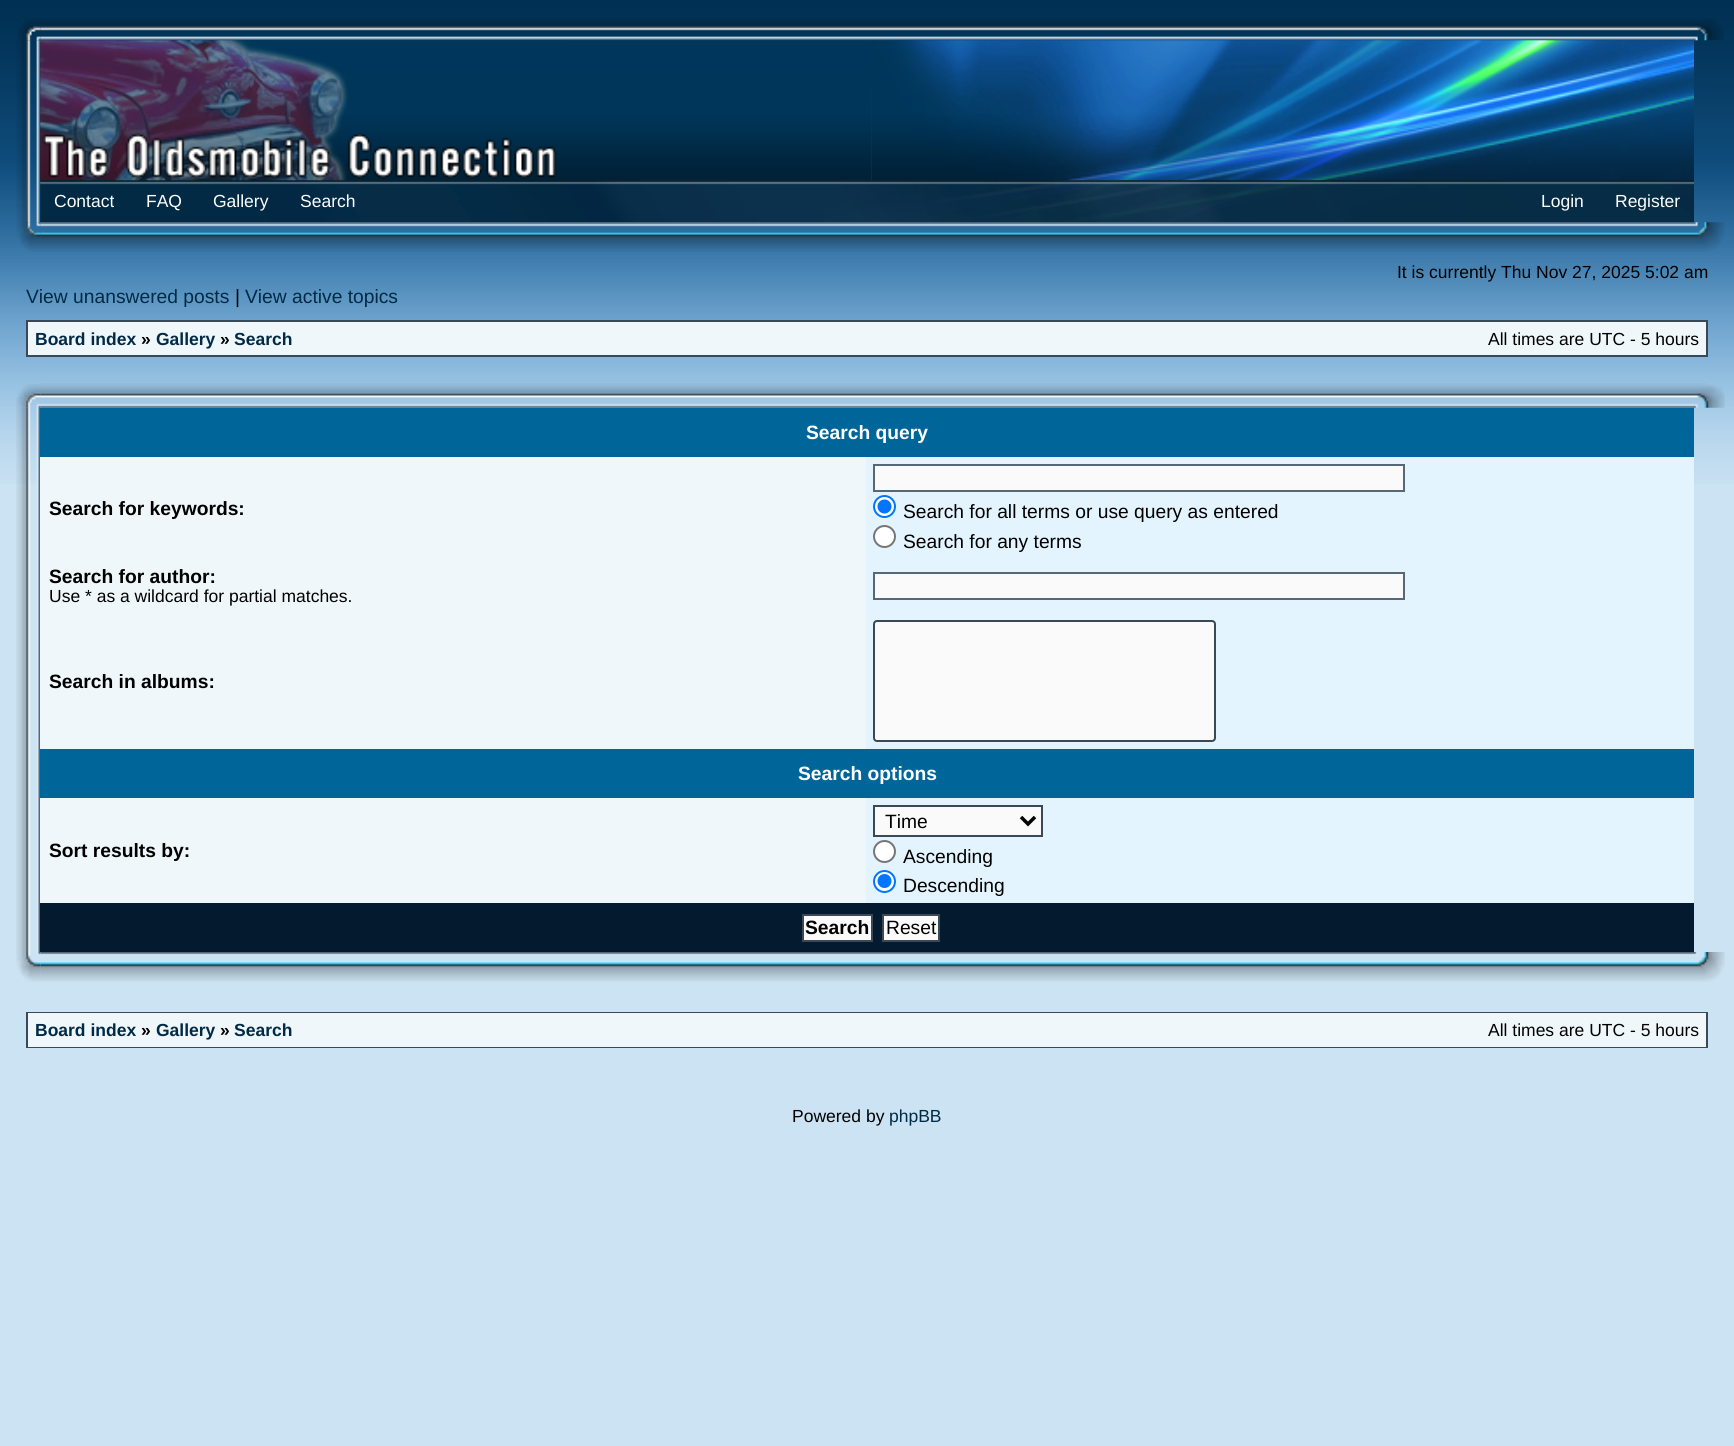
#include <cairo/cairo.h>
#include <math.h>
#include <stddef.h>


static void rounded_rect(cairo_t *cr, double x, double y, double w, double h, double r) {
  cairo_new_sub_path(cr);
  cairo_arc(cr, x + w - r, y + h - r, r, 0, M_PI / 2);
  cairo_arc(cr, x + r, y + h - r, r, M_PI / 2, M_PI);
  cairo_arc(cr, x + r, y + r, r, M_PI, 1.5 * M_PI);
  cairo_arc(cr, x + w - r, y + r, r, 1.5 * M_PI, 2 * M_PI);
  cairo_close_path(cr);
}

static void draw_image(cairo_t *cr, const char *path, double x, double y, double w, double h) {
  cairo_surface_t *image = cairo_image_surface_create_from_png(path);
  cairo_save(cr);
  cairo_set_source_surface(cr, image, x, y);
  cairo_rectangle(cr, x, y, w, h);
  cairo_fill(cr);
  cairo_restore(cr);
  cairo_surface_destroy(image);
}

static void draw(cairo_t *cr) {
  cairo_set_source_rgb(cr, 204 / 255.0, 227 / 255.0, 243 / 255.0);
  cairo_paint(cr);
  draw_image(cr, "images/1.png", 0, 0, 1734, 484);
  draw_image(cr, "images/3.png", 40, 18, 1654, 23);
  draw_image(cr, "images/5.png", 16, 40, 25, 183);
  draw_image(cr, "images/6.png", 40, 40, 832, 140);
  draw_image(cr, "images/2.png", 17, 18, 24, 23);
  draw_image(cr, "images/4.png", 1694, 18, 30, 23);
  cairo_set_source_rgb(cr, 6 / 255.0, 81 / 255.0, 138 / 255.0);
  cairo_rectangle(cr, 40, 180, 1654, 42);
  cairo_fill(cr);
  draw_image(cr, "images/9.png", 824, 180, 870, 43);
  draw_image(cr, "images/10.png", 40, 180, 1654, 43);
  draw_image(cr, "images/7.png", 40, 40, 521, 141);
  draw_image(cr, "images/8.png", 871, 40, 823, 140);
  draw_image(cr, "images/12.png", 40, 222, 1654, 30);
  draw_image(cr, "images/11.png", 16, 222, 25, 30);
  draw_image(cr, "images/13.png", 1694, 222, 31, 30);
  cairo_set_source_rgb(cr, 58 / 255.0, 73 / 255.0, 85 / 255.0);
  cairo_rectangle(cr, 26, 320, 1682, 37);
  cairo_fill(cr);
  cairo_set_source_rgb(cr, 239 / 255.0, 247 / 255.0, 251 / 255.0);
  cairo_rectangle(cr, 28, 322, 1678, 33);
  cairo_fill(cr);
  draw_image(cr, "images/15.png", 40, 383, 1654, 25);
  draw_image(cr, "images/17.png", 16, 407, 25, 545);
  draw_image(cr, "images/14.png", 16, 384, 25, 24);
  draw_image(cr, "images/16.png", 1694, 383, 31, 25);
  cairo_rectangle(cr, 40, 457, 826, 446);
  cairo_fill(cr);
  cairo_set_source_rgb(cr, 0, 102 / 255.0, 153 / 255.0);
  cairo_rectangle(cr, 40, 408, 1654, 49);
  cairo_fill(cr);
  cairo_set_source_rgb(cr, 228 / 255.0, 244 / 255.0, 254 / 255.0);
  cairo_rectangle(cr, 866, 457, 828, 292);
  cairo_fill(cr);
  cairo_set_source_rgb(cr, 250 / 255.0, 250 / 255.0, 250 / 255.0);
  cairo_rectangle(cr, 874, 465, 530, 26);
  cairo_fill_preserve(cr);
  cairo_set_source_rgb(cr, 86 / 255.0, 104 / 255.0, 119 / 255.0);
  cairo_stroke(cr);
  cairo_set_source_rgb(cr, 1, 1, 1);
  cairo_arc(cr, 884.5, 506.5, 10.5, 0, 2 * M_PI);
  cairo_fill_preserve(cr);
  cairo_set_source_rgb(cr, 0, 117 / 255.0, 1);
  cairo_stroke(cr);
  cairo_arc(cr, 884.5, 506.5, 7, 0, 2 * M_PI);
  cairo_fill(cr);
  cairo_set_source_rgb(cr, 1, 1, 1);
  cairo_arc(cr, 884.5, 536.5, 10.5, 0, 2 * M_PI);
  cairo_fill_preserve(cr);
  cairo_set_source_rgb(cr, 118 / 255.0, 118 / 255.0, 118 / 255.0);
  cairo_stroke(cr);
  cairo_set_source_rgb(cr, 250 / 255.0, 250 / 255.0, 250 / 255.0);
  cairo_rectangle(cr, 874, 573, 530, 26);
  cairo_fill_preserve(cr);
  cairo_set_source_rgb(cr, 86 / 255.0, 104 / 255.0, 119 / 255.0);
  cairo_stroke(cr);
  cairo_set_source_rgb(cr, 250 / 255.0, 250 / 255.0, 250 / 255.0);
  rounded_rect(cr, 874, 621, 341, 120, 3);
  cairo_fill_preserve(cr);
  cairo_set_source_rgb(cr, 58 / 255.0, 73 / 255.0, 85 / 255.0);
  cairo_stroke(cr);
  cairo_set_source_rgb(cr, 0, 102 / 255.0, 153 / 255.0);
  cairo_rectangle(cr, 40, 749, 1654, 49);
  cairo_fill(cr);
  cairo_set_source_rgb(cr, 228 / 255.0, 244 / 255.0, 254 / 255.0);
  cairo_rectangle(cr, 866, 798, 828, 105);
  cairo_fill(cr);
  cairo_set_source_rgb(cr, 250 / 255.0, 250 / 255.0, 250 / 255.0);
  cairo_rectangle(cr, 874, 806, 168, 30);
  cairo_fill_preserve(cr);
  cairo_set_source_rgb(cr, 58 / 255.0, 73 / 255.0, 85 / 255.0);
  cairo_stroke(cr);
  cairo_new_path(cr);
  cairo_move_to(cr, 1021, 817);
  cairo_line_to(cr, 1028, 824);
  cairo_line_to(cr, 1035, 817);
  cairo_set_source_rgb(cr, 0, 0, 0);
  cairo_set_line_width(cr, 3.5);
  cairo_stroke(cr);
  cairo_set_source_rgb(cr, 1, 1, 1);
  cairo_arc(cr, 884.5, 851.5, 10.5, 0, 2 * M_PI);
  cairo_fill_preserve(cr);
  cairo_set_source_rgb(cr, 118 / 255.0, 118 / 255.0, 118 / 255.0);
  cairo_set_line_width(cr, 2);
  cairo_stroke(cr);
  cairo_set_source_rgb(cr, 1, 1, 1);
  cairo_arc(cr, 884.5, 881.5, 10.5, 0, 2 * M_PI);
  cairo_fill_preserve(cr);
  cairo_set_source_rgb(cr, 0, 117 / 255.0, 1);
  cairo_stroke(cr);
  cairo_arc(cr, 884.5, 881, 7, 0, 2 * M_PI);
  cairo_fill(cr);
  cairo_set_source_rgb(cr, 3 / 255.0, 26 / 255.0, 47 / 255.0);
  cairo_rectangle(cr, 40, 903, 1654, 49);
  cairo_fill(cr);
  cairo_set_source_rgb(cr, 250 / 255.0, 250 / 255.0, 250 / 255.0);
  cairo_rectangle(cr, 803, 915, 69, 26);
  cairo_fill_preserve(cr);
  cairo_set_source_rgb(cr, 58 / 255.0, 73 / 255.0, 85 / 255.0);
  cairo_stroke(cr);
  cairo_set_source_rgb(cr, 250 / 255.0, 250 / 255.0, 250 / 255.0);
  cairo_rectangle(cr, 883, 915, 56, 26);
  cairo_fill_preserve(cr);
  cairo_set_source_rgb(cr, 58 / 255.0, 73 / 255.0, 85 / 255.0);
  cairo_stroke(cr);
  draw_image(cr, "images/19.png", 40, 952, 1654, 30);
  draw_image(cr, "images/18.png", 16, 952, 25, 30);
  draw_image(cr, "images/20.png", 1694, 952, 31, 30);
  cairo_rectangle(cr, 26, 1012, 1682, 36);
  cairo_fill(cr);
  cairo_set_source_rgb(cr, 239 / 255.0, 247 / 255.0, 251 / 255.0);
  cairo_rectangle(cr, 28, 1013, 1678, 34);
  cairo_fill(cr);
  cairo_select_font_face(cr, "Liberation Sans", CAIRO_FONT_SLANT_NORMAL, CAIRO_FONT_WEIGHT_NORMAL);
  cairo_set_font_size(cr, 17.5);
  cairo_set_source_rgb(cr, 1, 1, 1);
  cairo_move_to(cr, 54, 207);
  cairo_show_text(cr, "Contact");
  cairo_move_to(cr, 146, 207);
  cairo_show_text(cr, "FAQ");
  cairo_move_to(cr, 213, 207);
  cairo_show_text(cr, "Gallery");
  cairo_move_to(cr, 300, 207);
  cairo_show_text(cr, "Search");
  cairo_move_to(cr, 1541, 207);
  cairo_show_text(cr, "Login");
  cairo_move_to(cr, 1615, 207);
  cairo_show_text(cr, "Register");
  cairo_set_source_rgb(cr, 0, 0, 0);
  cairo_move_to(cr, 1397, 278);
  cairo_show_text(cr, "It is currently Thu Nov 27, 2025 5:02 am");
  cairo_set_font_size(cr, 19.25);
  cairo_set_source_rgb(cr, 0, 42 / 255.0, 70 / 255.0);
  cairo_move_to(cr, 26, 303);
  cairo_show_text(cr, "View unanswered posts");
  cairo_set_source_rgb(cr, 0, 0, 0);
  cairo_move_to(cr, 235, 303);
  cairo_show_text(cr, "|");
  cairo_set_source_rgb(cr, 0, 42 / 255.0, 70 / 255.0);
  cairo_move_to(cr, 245, 303);
  cairo_show_text(cr, "View active topics");
  cairo_select_font_face(cr, "Liberation Sans", CAIRO_FONT_SLANT_NORMAL, CAIRO_FONT_WEIGHT_BOLD);
  cairo_set_font_size(cr, 17.5);
  cairo_move_to(cr, 35, 345);
  cairo_show_text(cr, "Board index");
  cairo_set_source_rgb(cr, 0, 0, 0);
  cairo_move_to(cr, 141, 345);
  cairo_show_text(cr, "»");
  cairo_set_source_rgb(cr, 0, 42 / 255.0, 70 / 255.0);
  cairo_move_to(cr, 156, 345);
  cairo_show_text(cr, "Gallery");
  cairo_set_source_rgb(cr, 0, 0, 0);
  cairo_move_to(cr, 220, 345);
  cairo_show_text(cr, "»");
  cairo_set_source_rgb(cr, 0, 42 / 255.0, 70 / 255.0);
  cairo_move_to(cr, 234, 345);
  cairo_show_text(cr, "Search");
  cairo_select_font_face(cr, "Liberation Sans", CAIRO_FONT_SLANT_NORMAL, CAIRO_FONT_WEIGHT_NORMAL);
  cairo_set_source_rgb(cr, 0, 0, 0);
  cairo_move_to(cr, 1488, 345);
  cairo_show_text(cr, "All times are UTC - 5 hours");
  cairo_select_font_face(cr, "Liberation Sans", CAIRO_FONT_SLANT_NORMAL, CAIRO_FONT_WEIGHT_BOLD);
  cairo_set_font_size(cr, 19.25);
  cairo_set_source_rgb(cr, 1, 1, 1);
  cairo_move_to(cr, 806, 439);
  cairo_show_text(cr, "Search query");
  cairo_set_source_rgb(cr, 0, 0, 0);
  cairo_move_to(cr, 49, 515);
  cairo_show_text(cr, "Search for keywords:");
  cairo_select_font_face(cr, "Liberation Sans", CAIRO_FONT_SLANT_NORMAL, CAIRO_FONT_WEIGHT_NORMAL);
  cairo_move_to(cr, 903, 518);
  cairo_show_text(cr, "Search for all terms or use query as entered");
  cairo_move_to(cr, 903, 548);
  cairo_show_text(cr, "Search for any terms");
  cairo_select_font_face(cr, "Liberation Sans", CAIRO_FONT_SLANT_NORMAL, CAIRO_FONT_WEIGHT_BOLD);
  cairo_move_to(cr, 49, 583);
  cairo_show_text(cr, "Search for author:");
  cairo_select_font_face(cr, "Liberation Sans", CAIRO_FONT_SLANT_NORMAL, CAIRO_FONT_WEIGHT_NORMAL);
  cairo_set_font_size(cr, 17.5);
  cairo_move_to(cr, 49, 602);
  cairo_show_text(cr, "Use * as a wildcard for partial matches.");
  cairo_select_font_face(cr, "Liberation Sans", CAIRO_FONT_SLANT_NORMAL, CAIRO_FONT_WEIGHT_BOLD);
  cairo_set_font_size(cr, 19.25);
  cairo_move_to(cr, 49, 688);
  cairo_show_text(cr, "Search in albums:");
  cairo_set_source_rgb(cr, 1, 1, 1);
  cairo_move_to(cr, 798, 780);
  cairo_show_text(cr, "Search options");
  cairo_set_source_rgb(cr, 0, 0, 0);
  cairo_move_to(cr, 49, 857);
  cairo_show_text(cr, "Sort results by:");
  cairo_select_font_face(cr, "Liberation Sans", CAIRO_FONT_SLANT_NORMAL, CAIRO_FONT_WEIGHT_NORMAL);
  cairo_move_to(cr, 885, 828);
  cairo_show_text(cr, "Time");
  cairo_move_to(cr, 903, 863);
  cairo_show_text(cr, "Ascending");
  cairo_move_to(cr, 903, 892);
  cairo_show_text(cr, "Descending");
  cairo_select_font_face(cr, "Liberation Sans", CAIRO_FONT_SLANT_NORMAL, CAIRO_FONT_WEIGHT_BOLD);
  cairo_move_to(cr, 805, 934);
  cairo_show_text(cr, "Search");
  cairo_select_font_face(cr, "Liberation Sans", CAIRO_FONT_SLANT_NORMAL, CAIRO_FONT_WEIGHT_NORMAL);
  cairo_move_to(cr, 886, 934);
  cairo_show_text(cr, "Reset");
  cairo_select_font_face(cr, "Liberation Sans", CAIRO_FONT_SLANT_NORMAL, CAIRO_FONT_WEIGHT_BOLD);
  cairo_set_font_size(cr, 17.5);
  cairo_set_source_rgb(cr, 0, 42 / 255.0, 70 / 255.0);
  cairo_move_to(cr, 35, 1036);
  cairo_show_text(cr, "Board index");
  cairo_set_source_rgb(cr, 0, 0, 0);
  cairo_move_to(cr, 141, 1036);
  cairo_show_text(cr, "»");
  cairo_set_source_rgb(cr, 0, 42 / 255.0, 70 / 255.0);
  cairo_move_to(cr, 156, 1036);
  cairo_show_text(cr, "Gallery");
  cairo_set_source_rgb(cr, 0, 0, 0);
  cairo_move_to(cr, 220, 1036);
  cairo_show_text(cr, "»");
  cairo_set_source_rgb(cr, 0, 42 / 255.0, 70 / 255.0);
  cairo_move_to(cr, 234, 1036);
  cairo_show_text(cr, "Search");
  cairo_select_font_face(cr, "Liberation Sans", CAIRO_FONT_SLANT_NORMAL, CAIRO_FONT_WEIGHT_NORMAL);
  cairo_set_source_rgb(cr, 0, 0, 0);
  cairo_move_to(cr, 1488, 1036);
  cairo_show_text(cr, "All times are UTC - 5 hours");
  cairo_move_to(cr, 792, 1122);
  cairo_show_text(cr, "Powered by");
  cairo_set_source_rgb(cr, 0, 42 / 255.0, 70 / 255.0);
  cairo_move_to(cr, 889, 1122);
  cairo_show_text(cr, "phpBB");
}

int main(void) {
  cairo_surface_t *surface = cairo_image_surface_create(CAIRO_FORMAT_RGB24, 1734, 1446);
  cairo_t *cr = cairo_create(surface);
  cairo_font_options_t *options = cairo_font_options_create();
  cairo_font_options_set_hint_metrics(options, CAIRO_HINT_METRICS_OFF);
  cairo_font_options_set_hint_style(options, CAIRO_HINT_STYLE_NONE);
  cairo_set_font_options(cr, options);
  cairo_set_miter_limit(cr, 4);
  draw(cr);
  cairo_surface_write_to_png(surface, "out.png");
  cairo_font_options_destroy(options);
  cairo_destroy(cr);
  cairo_surface_destroy(surface);
  return 0;
}
